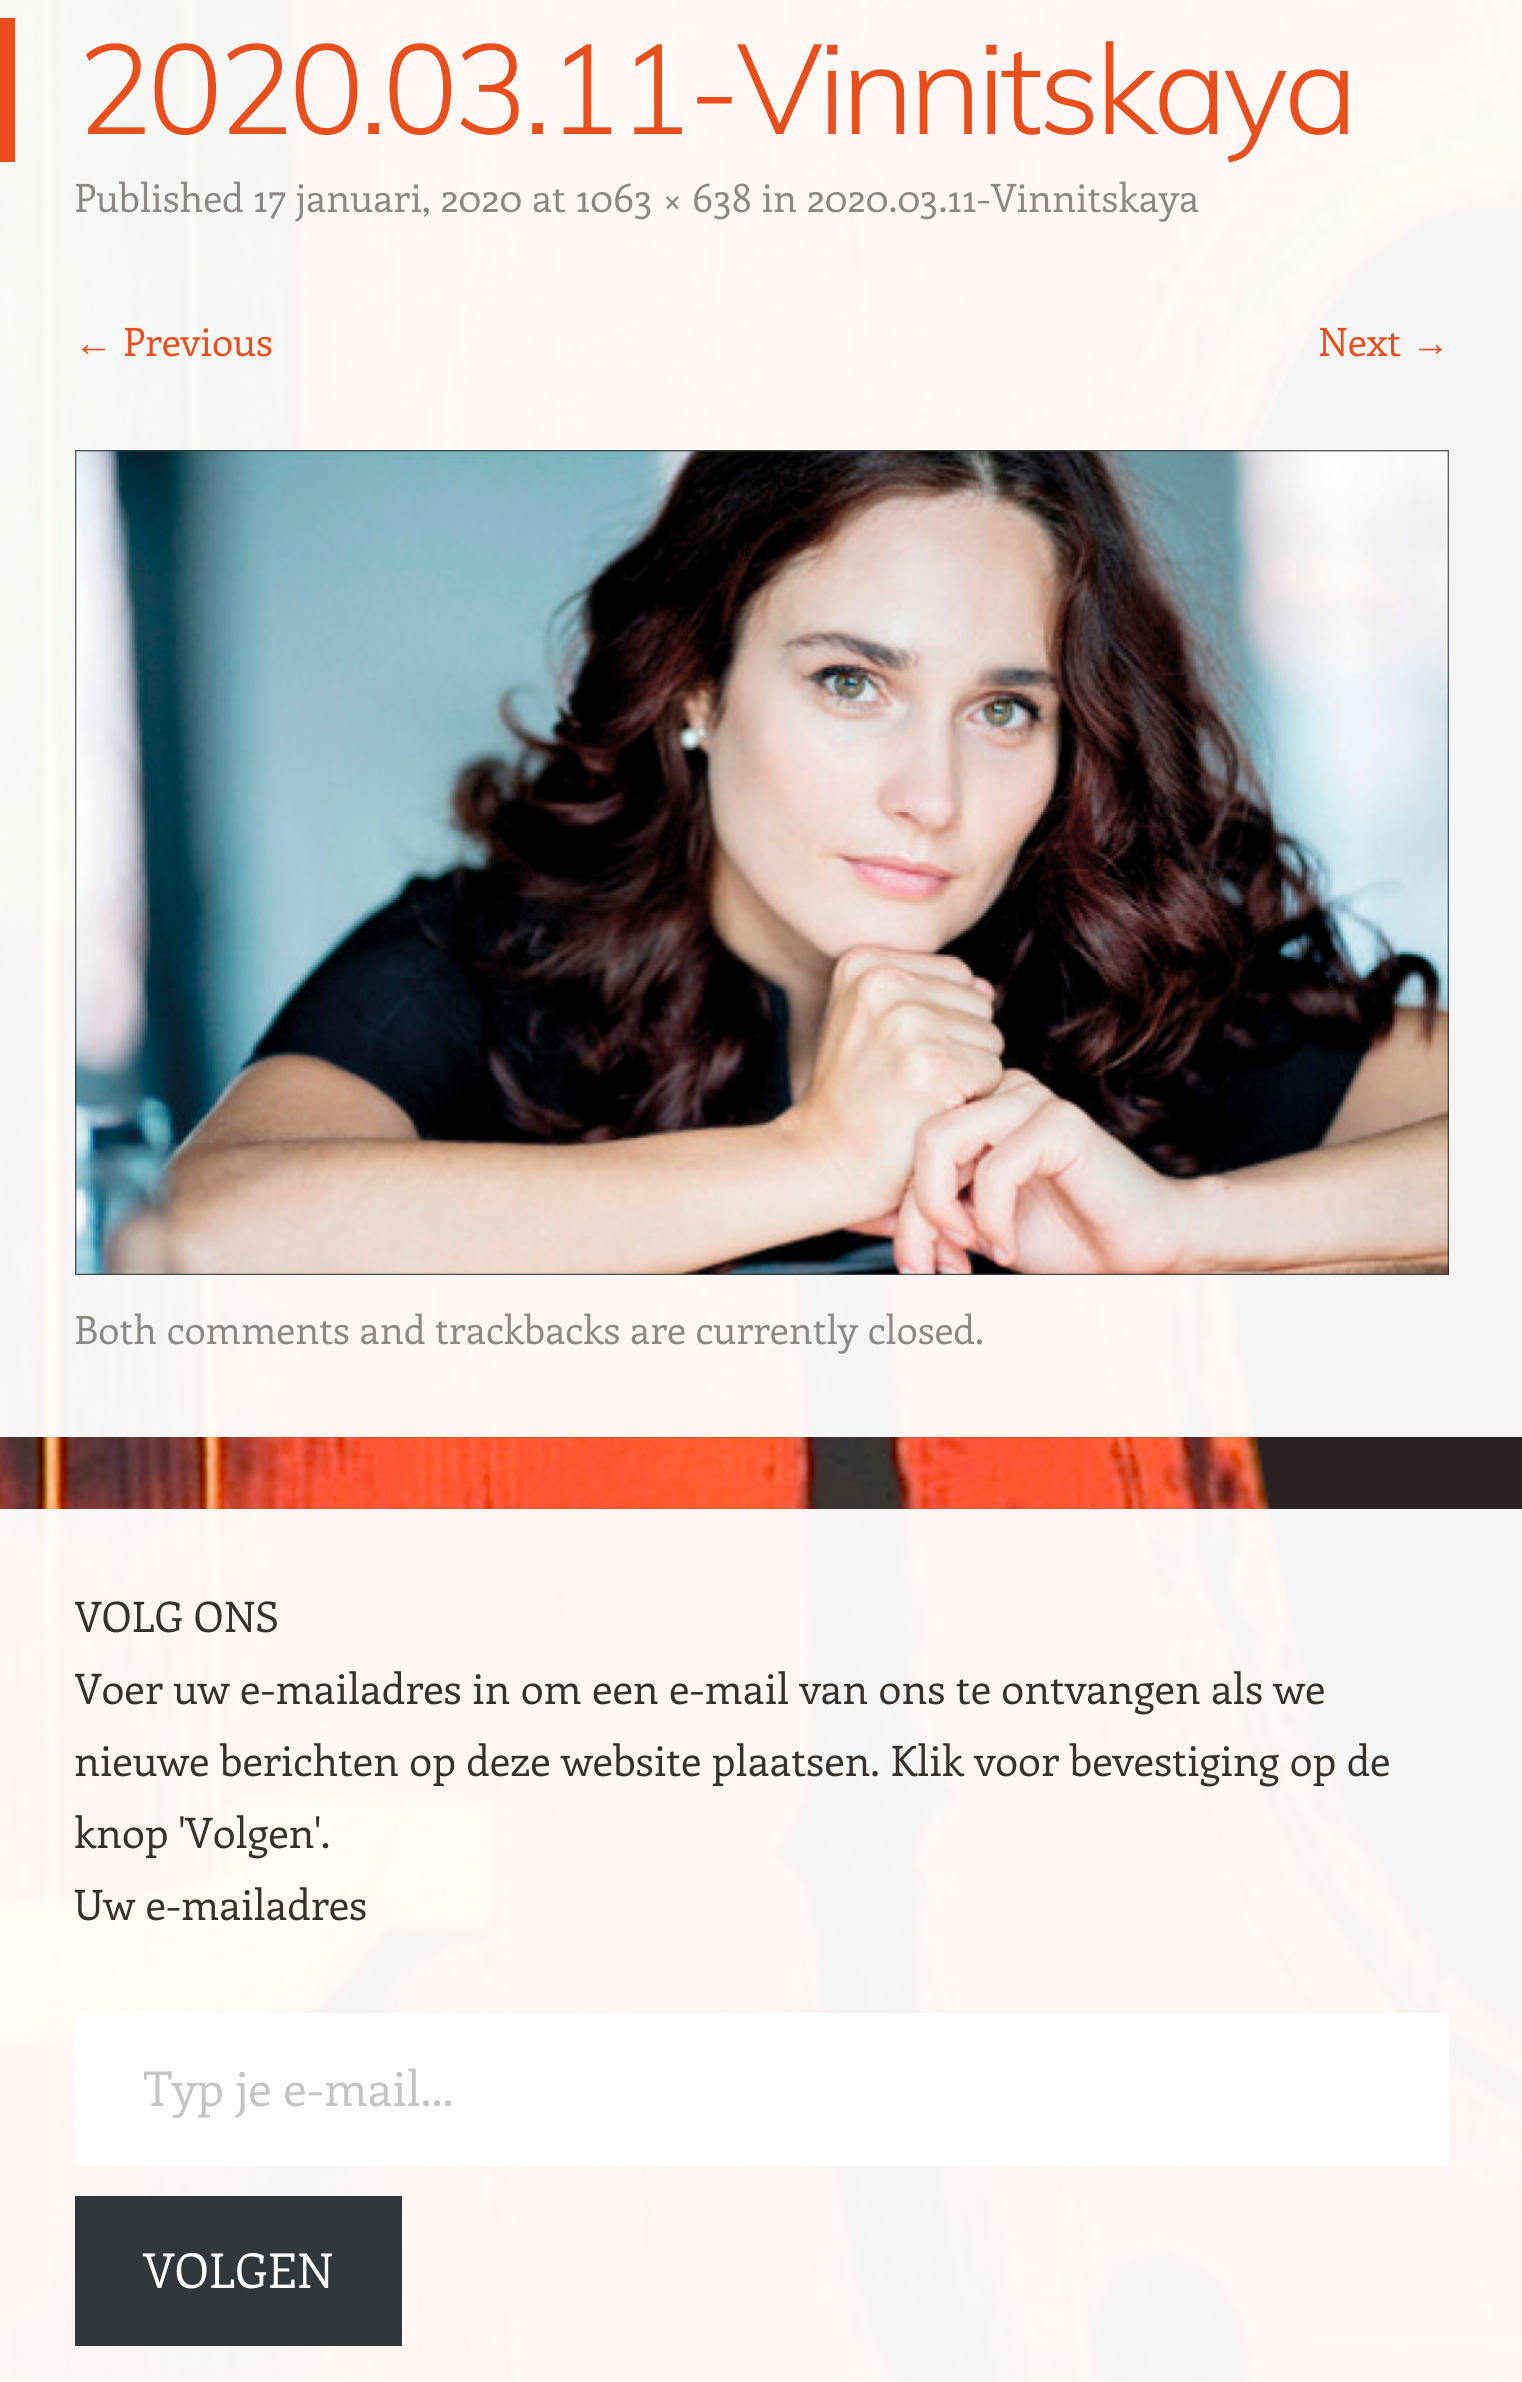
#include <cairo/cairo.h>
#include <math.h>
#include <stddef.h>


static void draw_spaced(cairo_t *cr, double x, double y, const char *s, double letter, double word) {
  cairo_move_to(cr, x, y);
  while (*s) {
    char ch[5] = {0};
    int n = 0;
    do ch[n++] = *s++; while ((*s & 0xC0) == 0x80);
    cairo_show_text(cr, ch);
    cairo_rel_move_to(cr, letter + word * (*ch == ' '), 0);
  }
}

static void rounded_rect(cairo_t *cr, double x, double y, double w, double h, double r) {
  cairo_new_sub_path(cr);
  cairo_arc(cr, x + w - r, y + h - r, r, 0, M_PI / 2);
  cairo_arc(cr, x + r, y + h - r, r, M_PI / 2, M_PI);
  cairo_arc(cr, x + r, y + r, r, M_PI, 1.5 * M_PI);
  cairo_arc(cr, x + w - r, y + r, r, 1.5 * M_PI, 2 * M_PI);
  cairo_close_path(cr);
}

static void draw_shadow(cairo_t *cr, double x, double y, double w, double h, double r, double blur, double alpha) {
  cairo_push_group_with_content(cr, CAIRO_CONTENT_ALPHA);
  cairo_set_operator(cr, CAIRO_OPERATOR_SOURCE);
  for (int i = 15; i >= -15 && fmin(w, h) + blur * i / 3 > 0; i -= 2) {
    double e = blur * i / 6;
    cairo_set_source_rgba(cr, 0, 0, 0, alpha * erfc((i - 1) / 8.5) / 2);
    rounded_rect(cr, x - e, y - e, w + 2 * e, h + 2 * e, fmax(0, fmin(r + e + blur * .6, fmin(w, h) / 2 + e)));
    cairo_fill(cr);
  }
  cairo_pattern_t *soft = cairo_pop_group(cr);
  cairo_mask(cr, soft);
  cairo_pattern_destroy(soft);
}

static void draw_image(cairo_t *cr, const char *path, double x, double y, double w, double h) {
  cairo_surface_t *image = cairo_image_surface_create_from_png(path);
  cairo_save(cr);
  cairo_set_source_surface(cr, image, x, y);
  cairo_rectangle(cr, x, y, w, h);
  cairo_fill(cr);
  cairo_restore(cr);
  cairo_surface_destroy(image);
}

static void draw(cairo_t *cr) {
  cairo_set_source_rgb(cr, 1, 1, 1);
  cairo_paint(cr);
  draw_image(cr, "images/1.png", 0, 0, 1522, 2382);
  cairo_set_source_rgba(cr, 1, 1, 1, 0.95);
  cairo_rectangle(cr, 0, 0, 1522, 1437);
  cairo_fill(cr);
  cairo_set_source_rgb(cr, 233 / 255.0, 79 / 255.0, 29 / 255.0);
  cairo_rectangle(cr, 0, 18, 15, 144);
  cairo_fill(cr);
  draw_image(cr, "images/2.png", 75, 450, 1374, 825);
  cairo_save(cr);
  cairo_set_fill_rule(cr, CAIRO_FILL_RULE_EVEN_ODD);
  cairo_new_path(cr);
  cairo_move_to(cr, 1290, 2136);
  cairo_line_to(cr, 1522, 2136);
  cairo_line_to(cr, 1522, 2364);
  cairo_line_to(cr, 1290, 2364);
  cairo_close_path(cr);
  cairo_move_to(cr, 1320, 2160);
  cairo_line_to(cr, 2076, 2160);
  cairo_curve_to(cr, 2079.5, 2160, 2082, 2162.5, 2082, 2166);
  cairo_line_to(cr, 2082, 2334);
  cairo_curve_to(cr, 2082, 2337.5, 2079.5, 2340, 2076, 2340);
  cairo_line_to(cr, 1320, 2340);
  cairo_curve_to(cr, 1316.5, 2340, 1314, 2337.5, 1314, 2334);
  cairo_line_to(cr, 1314, 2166);
  cairo_curve_to(cr, 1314, 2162.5, 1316.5, 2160, 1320, 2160);
  cairo_close_path(cr);
  cairo_clip(cr);
  cairo_set_source_rgb(cr, 128 / 255.0, 128 / 255.0, 128 / 255.0);
  draw_shadow(cr, 1314, 2160, 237, 180, 6, 7.5, 1);
  cairo_restore(cr);
  cairo_set_source_rgba(cr, 1, 1, 1, 0.95);
  cairo_rectangle(cr, 0, 1509, 1522, 873);
  cairo_fill(cr);
  cairo_set_source_rgb(cr, 1, 1, 1);
  cairo_rectangle(cr, 75, 2013, 1374, 153);
  cairo_fill(cr);
  cairo_set_source_rgb(cr, 50 / 255.0, 55 / 255.0, 60 / 255.0);
  cairo_rectangle(cr, 75, 2196, 327, 150);
  cairo_fill(cr);
  cairo_select_font_face(cr, "Muli Light", CAIRO_FONT_SLANT_NORMAL, CAIRO_FONT_WEIGHT_NORMAL);
  cairo_set_font_size(cr, 126);
  cairo_set_source_rgb(cr, 233 / 255.0, 79 / 255.0, 29 / 255.0);
  draw_spaced(cr, 77, 134, "2020.03.11-Vinnitskaya", -5, 0);
  cairo_select_font_face(cr, "Enriqueta", CAIRO_FONT_SLANT_NORMAL, CAIRO_FONT_WEIGHT_NORMAL);
  cairo_set_font_size(cr, 39);
  cairo_set_source_rgb(cr, 140 / 255.0, 136 / 255.0, 133 / 255.0);
  cairo_move_to(cr, 74, 212);
  cairo_show_text(cr, "Published 17 januari, 2020 at 1063 × 638 in 2020.03.11-Vinnitskaya");
  cairo_select_font_face(cr, "Liberation Serif", CAIRO_FONT_SLANT_NORMAL, CAIRO_FONT_WEIGHT_NORMAL);
  cairo_set_source_rgb(cr, 233 / 255.0, 79 / 255.0, 29 / 255.0);
  cairo_move_to(cr, 74, 356);
  cairo_show_text(cr, "←");
  cairo_select_font_face(cr, "Enriqueta", CAIRO_FONT_SLANT_NORMAL, CAIRO_FONT_WEIGHT_NORMAL);
  cairo_move_to(cr, 123, 356);
  cairo_show_text(cr, "Previous");
  cairo_move_to(cr, 1318, 356);
  cairo_show_text(cr, "Next");
  cairo_select_font_face(cr, "Liberation Serif", CAIRO_FONT_SLANT_NORMAL, CAIRO_FONT_WEIGHT_NORMAL);
  cairo_move_to(cr, 1411, 356);
  cairo_show_text(cr, "→");
  cairo_select_font_face(cr, "Enriqueta", CAIRO_FONT_SLANT_NORMAL, CAIRO_FONT_WEIGHT_NORMAL);
  cairo_set_source_rgb(cr, 140 / 255.0, 136 / 255.0, 133 / 255.0);
  cairo_move_to(cr, 74, 1344);
  cairo_show_text(cr, "Both comments and trackbacks are currently closed.");
  cairo_save(cr);
  cairo_rectangle(cr, 75, 1581, 1374, 360);
  cairo_clip(cr);
  cairo_set_font_size(cr, 42);
  cairo_set_source_rgb(cr, 54 / 255.0, 49 / 255.0, 45 / 255.0);
  cairo_move_to(cr, 74, 1632);
  cairo_show_text(cr, "VOLG ONS");
  cairo_move_to(cr, 74, 1704);
  cairo_show_text(cr, "Voer uw e-mailadres in om een e-mail van ons te ontvangen als we");
  cairo_restore(cr);
  cairo_set_font_size(cr, 42);
  cairo_set_source_rgb(cr, 54 / 255.0, 49 / 255.0, 45 / 255.0);
  cairo_move_to(cr, 74, 1776);
  cairo_show_text(cr, "nieuwe berichten op deze website plaatsen. Klik voor bevestiging op de");
  cairo_move_to(cr, 74, 1848);
  cairo_show_text(cr, "knop 'Volgen'.");
  cairo_move_to(cr, 74, 1920);
  cairo_show_text(cr, "Uw e-mailadres");
  cairo_save(cr);
  cairo_rectangle(cr, 144, 2055, 1236, 63);
  cairo_clip(cr);
  cairo_set_font_size(cr, 48);
  cairo_set_source_rgb(cr, 198 / 255.0, 196 / 255.0, 194 / 255.0);
  cairo_move_to(cr, 143, 2106);
  cairo_show_text(cr, "Typ je e-mail...");
  cairo_restore(cr);
  cairo_set_font_size(cr, 48);
  cairo_set_source_rgb(cr, 1, 1, 1);
  cairo_move_to(cr, 143, 2288);
  cairo_show_text(cr, "VOLGEN");
}

int main(void) {
  cairo_surface_t *surface = cairo_image_surface_create(CAIRO_FORMAT_RGB24, 1522, 2382);
  cairo_t *cr = cairo_create(surface);
  cairo_font_options_t *options = cairo_font_options_create();
  cairo_font_options_set_hint_metrics(options, CAIRO_HINT_METRICS_OFF);
  cairo_font_options_set_hint_style(options, CAIRO_HINT_STYLE_NONE);
  cairo_set_font_options(cr, options);
  cairo_set_miter_limit(cr, 4);
  draw(cr);
  cairo_surface_write_to_png(surface, "out.png");
  cairo_font_options_destroy(options);
  cairo_destroy(cr);
  cairo_surface_destroy(surface);
  return 0;
}
